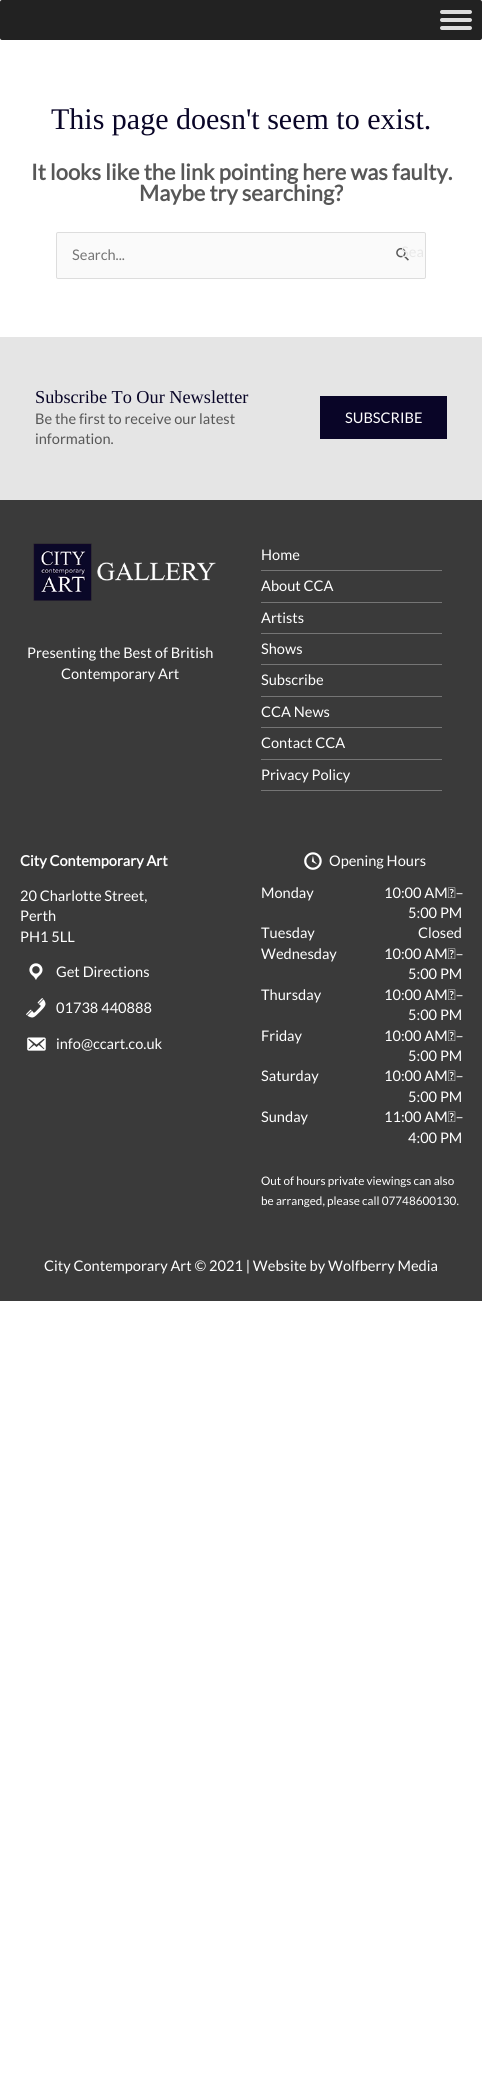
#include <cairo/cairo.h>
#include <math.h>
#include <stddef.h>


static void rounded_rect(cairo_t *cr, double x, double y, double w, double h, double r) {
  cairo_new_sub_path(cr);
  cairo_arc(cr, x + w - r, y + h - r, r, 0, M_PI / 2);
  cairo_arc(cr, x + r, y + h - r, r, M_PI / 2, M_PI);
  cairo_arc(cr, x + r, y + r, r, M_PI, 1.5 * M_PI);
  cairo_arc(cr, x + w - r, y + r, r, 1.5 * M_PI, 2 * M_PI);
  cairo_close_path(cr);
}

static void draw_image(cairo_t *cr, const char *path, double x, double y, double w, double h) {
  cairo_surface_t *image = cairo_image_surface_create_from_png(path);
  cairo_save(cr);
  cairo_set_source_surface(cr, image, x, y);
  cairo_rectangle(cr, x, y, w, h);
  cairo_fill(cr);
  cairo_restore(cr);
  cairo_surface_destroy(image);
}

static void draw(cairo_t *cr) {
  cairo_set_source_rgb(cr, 1, 1, 1);
  cairo_paint(cr);
  cairo_set_source_rgb(cr, 34 / 255.0, 34 / 255.0, 34 / 255.0);
  rounded_rect(cr, 0, 0, 482, 40, 2);
  cairo_fill(cr);
  cairo_set_source_rgb(cr, 221 / 255.0, 221 / 255.0, 221 / 255.0);
  rounded_rect(cr, 440, 10, 32, 4, 2);
  cairo_fill(cr);
  rounded_rect(cr, 440, 18, 32, 4, 2);
  cairo_fill(cr);
  rounded_rect(cr, 440, 26, 32, 4, 2);
  cairo_fill(cr);
  cairo_set_source_rgb(cr, 250 / 255.0, 250 / 255.0, 250 / 255.0);
  rounded_rect(cr, 56.5, 232.5, 369, 46, 1.5);
  cairo_fill_preserve(cr);
  cairo_set_source_rgb(cr, 221 / 255.0, 221 / 255.0, 221 / 255.0);
  cairo_set_line_width(cr, 1);
  cairo_stroke(cr);
  draw_image(cr, "images/1.png", 396, 247, 13, 14);
  cairo_set_source_rgb(cr, 229 / 255.0, 229 / 255.0, 229 / 255.0);
  cairo_rectangle(cr, 0, 337, 482, 163);
  cairo_fill(cr);
  cairo_set_source_rgb(cr, 9 / 255.0, 5 / 255.0, 39 / 255.0);
  cairo_rectangle(cr, 320, 396, 127, 43);
  cairo_fill(cr);
  cairo_set_source_rgb(cr, 58 / 255.0, 58 / 255.0, 58 / 255.0);
  cairo_rectangle(cr, 0, 500, 482, 801);
  cairo_fill(cr);
  draw_image(cr, "images/2.png", 33, 543, 183, 58);
  cairo_set_source_rgb(cr, 117 / 255.0, 117 / 255.0, 117 / 255.0);
  cairo_rectangle(cr, 261, 570, 181, 1);
  cairo_fill(cr);
  cairo_rectangle(cr, 261, 602, 181, 1);
  cairo_fill(cr);
  cairo_rectangle(cr, 261, 633, 181, 1);
  cairo_fill(cr);
  cairo_rectangle(cr, 261, 664, 181, 1);
  cairo_fill(cr);
  cairo_rectangle(cr, 261, 696, 181, 1);
  cairo_fill(cr);
  cairo_rectangle(cr, 261, 727, 181, 1);
  cairo_fill(cr);
  cairo_rectangle(cr, 261, 759, 181, 1);
  cairo_fill(cr);
  cairo_rectangle(cr, 261, 790, 181, 1);
  cairo_fill(cr);
  draw_image(cr, "images/3.png", 29, 963, 14, 17);
  draw_image(cr, "images/4.png", 26, 998, 20, 20);
  draw_image(cr, "images/5.png", 27, 1037, 19, 14);
  draw_image(cr, "images/6.png", 304, 852, 18, 18);
  cairo_select_font_face(cr, "Liberation Serif", CAIRO_FONT_SLANT_NORMAL, CAIRO_FONT_WEIGHT_NORMAL);
  cairo_set_font_size(cr, 30);
  cairo_set_source_rgb(cr, 9 / 255.0, 5 / 255.0, 39 / 255.0);
  cairo_move_to(cr, 51, 129);
  cairo_show_text(cr, "This page doesn't seem to exist.");
  cairo_select_font_face(cr, "Lato", CAIRO_FONT_SLANT_NORMAL, CAIRO_FONT_WEIGHT_BOLD);
  cairo_set_font_size(cr, 21.9);
  cairo_set_source_rgb(cr, 87 / 255.0, 87 / 255.0, 87 / 255.0);
  cairo_move_to(cr, 31, 180);
  cairo_show_text(cr, "It looks like the link pointing here was faulty.");
  cairo_move_to(cr, 139, 201);
  cairo_show_text(cr, "Maybe try searching?");
  cairo_select_font_face(cr, "Lato", CAIRO_FONT_SLANT_NORMAL, CAIRO_FONT_WEIGHT_NORMAL);
  cairo_set_font_size(cr, 14.6);
  cairo_set_source_rgb(cr, 232 / 255.0, 232 / 255.0, 232 / 255.0);
  cairo_move_to(cr, 401, 257);
  cairo_show_text(cr, "Sea");
  cairo_set_source_rgb(cr, 117 / 255.0, 117 / 255.0, 117 / 255.0);
  cairo_move_to(cr, 72, 260);
  cairo_show_text(cr, "Search...");
  cairo_select_font_face(cr, "Liberation Serif", CAIRO_FONT_SLANT_NORMAL, CAIRO_FONT_WEIGHT_NORMAL);
  cairo_set_font_size(cr, 18.25);
  cairo_set_source_rgb(cr, 9 / 255.0, 5 / 255.0, 39 / 255.0);
  cairo_move_to(cr, 35, 403);
  cairo_show_text(cr, "Subscribe To Our Newsletter");
  cairo_select_font_face(cr, "Lato", CAIRO_FONT_SLANT_NORMAL, CAIRO_FONT_WEIGHT_NORMAL);
  cairo_set_font_size(cr, 14.6);
  cairo_set_source_rgb(cr, 87 / 255.0, 87 / 255.0, 87 / 255.0);
  cairo_move_to(cr, 35, 424);
  cairo_show_text(cr, "Be the first to receive our latest");
  cairo_move_to(cr, 35, 444);
  cairo_show_text(cr, "information.");
  cairo_set_source_rgb(cr, 1, 1, 1);
  cairo_move_to(cr, 345, 423);
  cairo_show_text(cr, "SUBSCRIBE");
  cairo_move_to(cr, 27, 658);
  cairo_show_text(cr, "Presenting the Best of British");
  cairo_move_to(cr, 61, 679);
  cairo_show_text(cr, "Contemporary Art");
  cairo_move_to(cr, 261, 560);
  cairo_show_text(cr, "Home");
  cairo_move_to(cr, 261, 591);
  cairo_show_text(cr, "About CCA");
  cairo_move_to(cr, 261, 623);
  cairo_show_text(cr, "Artists");
  cairo_move_to(cr, 261, 654);
  cairo_show_text(cr, "Shows");
  cairo_move_to(cr, 261, 685);
  cairo_show_text(cr, "Subscribe");
  cairo_move_to(cr, 261, 717);
  cairo_show_text(cr, "CCA News");
  cairo_move_to(cr, 261, 748);
  cairo_show_text(cr, "Contact CCA");
  cairo_move_to(cr, 261, 780);
  cairo_show_text(cr, "Privacy Policy");
  cairo_select_font_face(cr, "Lato", CAIRO_FONT_SLANT_NORMAL, CAIRO_FONT_WEIGHT_BOLD);
  cairo_move_to(cr, 20, 866);
  cairo_show_text(cr, "City Contemporary Art");
  cairo_select_font_face(cr, "Lato", CAIRO_FONT_SLANT_NORMAL, CAIRO_FONT_WEIGHT_NORMAL);
  cairo_move_to(cr, 20, 901);
  cairo_show_text(cr, "20 Charlotte Street,");
  cairo_move_to(cr, 20, 921);
  cairo_show_text(cr, "Perth");
  cairo_move_to(cr, 20, 942);
  cairo_show_text(cr, "PH1 5LL");
  cairo_move_to(cr, 56, 977);
  cairo_show_text(cr, "Get Directions");
  cairo_move_to(cr, 56, 1013);
  cairo_show_text(cr, "01738 440888");
  cairo_move_to(cr, 56, 1049);
  cairo_show_text(cr, "info@ccart.co.uk");
  cairo_move_to(cr, 329, 866);
  cairo_show_text(cr, "Opening Hours");
  cairo_move_to(cr, 261, 898);
  cairo_show_text(cr, "Monday");
  cairo_move_to(cr, 384, 898);
  cairo_show_text(cr, "10:00 AM –");
  cairo_move_to(cr, 408, 918);
  cairo_show_text(cr, "5:00 PM");
  cairo_move_to(cr, 261, 938);
  cairo_show_text(cr, "Tuesday");
  cairo_move_to(cr, 418, 938);
  cairo_show_text(cr, "Closed");
  cairo_move_to(cr, 261, 959);
  cairo_show_text(cr, "Wednesday");
  cairo_move_to(cr, 384, 959);
  cairo_show_text(cr, "10:00 AM –");
  cairo_move_to(cr, 408, 979);
  cairo_show_text(cr, "5:00 PM");
  cairo_move_to(cr, 261, 1000);
  cairo_show_text(cr, "Thursday");
  cairo_move_to(cr, 384, 1000);
  cairo_show_text(cr, "10:00 AM –");
  cairo_move_to(cr, 408, 1020);
  cairo_show_text(cr, "5:00 PM");
  cairo_move_to(cr, 261, 1041);
  cairo_show_text(cr, "Friday");
  cairo_move_to(cr, 384, 1041);
  cairo_show_text(cr, "10:00 AM –");
  cairo_move_to(cr, 408, 1061);
  cairo_show_text(cr, "5:00 PM");
  cairo_move_to(cr, 261, 1081);
  cairo_show_text(cr, "Saturday");
  cairo_move_to(cr, 384, 1081);
  cairo_show_text(cr, "10:00 AM –");
  cairo_move_to(cr, 408, 1102);
  cairo_show_text(cr, "5:00 PM");
  cairo_move_to(cr, 261, 1122);
  cairo_show_text(cr, "Sunday");
  cairo_move_to(cr, 384, 1122);
  cairo_show_text(cr, "11:00 AM –");
  cairo_move_to(cr, 408, 1143);
  cairo_show_text(cr, "4:00 PM");
  cairo_set_font_size(cr, 11.7);
  cairo_move_to(cr, 261, 1185);
  cairo_show_text(cr, "Out of hours private viewings can also");
  cairo_move_to(cr, 261, 1205);
  cairo_show_text(cr, "be arranged, please call 07748600130.");
  cairo_set_font_size(cr, 14.6);
  cairo_move_to(cr, 44, 1271);
  cairo_show_text(cr, "City Contemporary Art © 2021 | Website by Wolfberry Media");
}

int main(void) {
  cairo_surface_t *surface = cairo_image_surface_create(CAIRO_FORMAT_RGB24, 482, 2080);
  cairo_t *cr = cairo_create(surface);
  cairo_font_options_t *options = cairo_font_options_create();
  cairo_font_options_set_hint_metrics(options, CAIRO_HINT_METRICS_OFF);
  cairo_font_options_set_hint_style(options, CAIRO_HINT_STYLE_NONE);
  cairo_set_font_options(cr, options);
  cairo_set_miter_limit(cr, 4);
  draw(cr);
  cairo_surface_write_to_png(surface, "out.png");
  cairo_font_options_destroy(options);
  cairo_destroy(cr);
  cairo_surface_destroy(surface);
  return 0;
}
